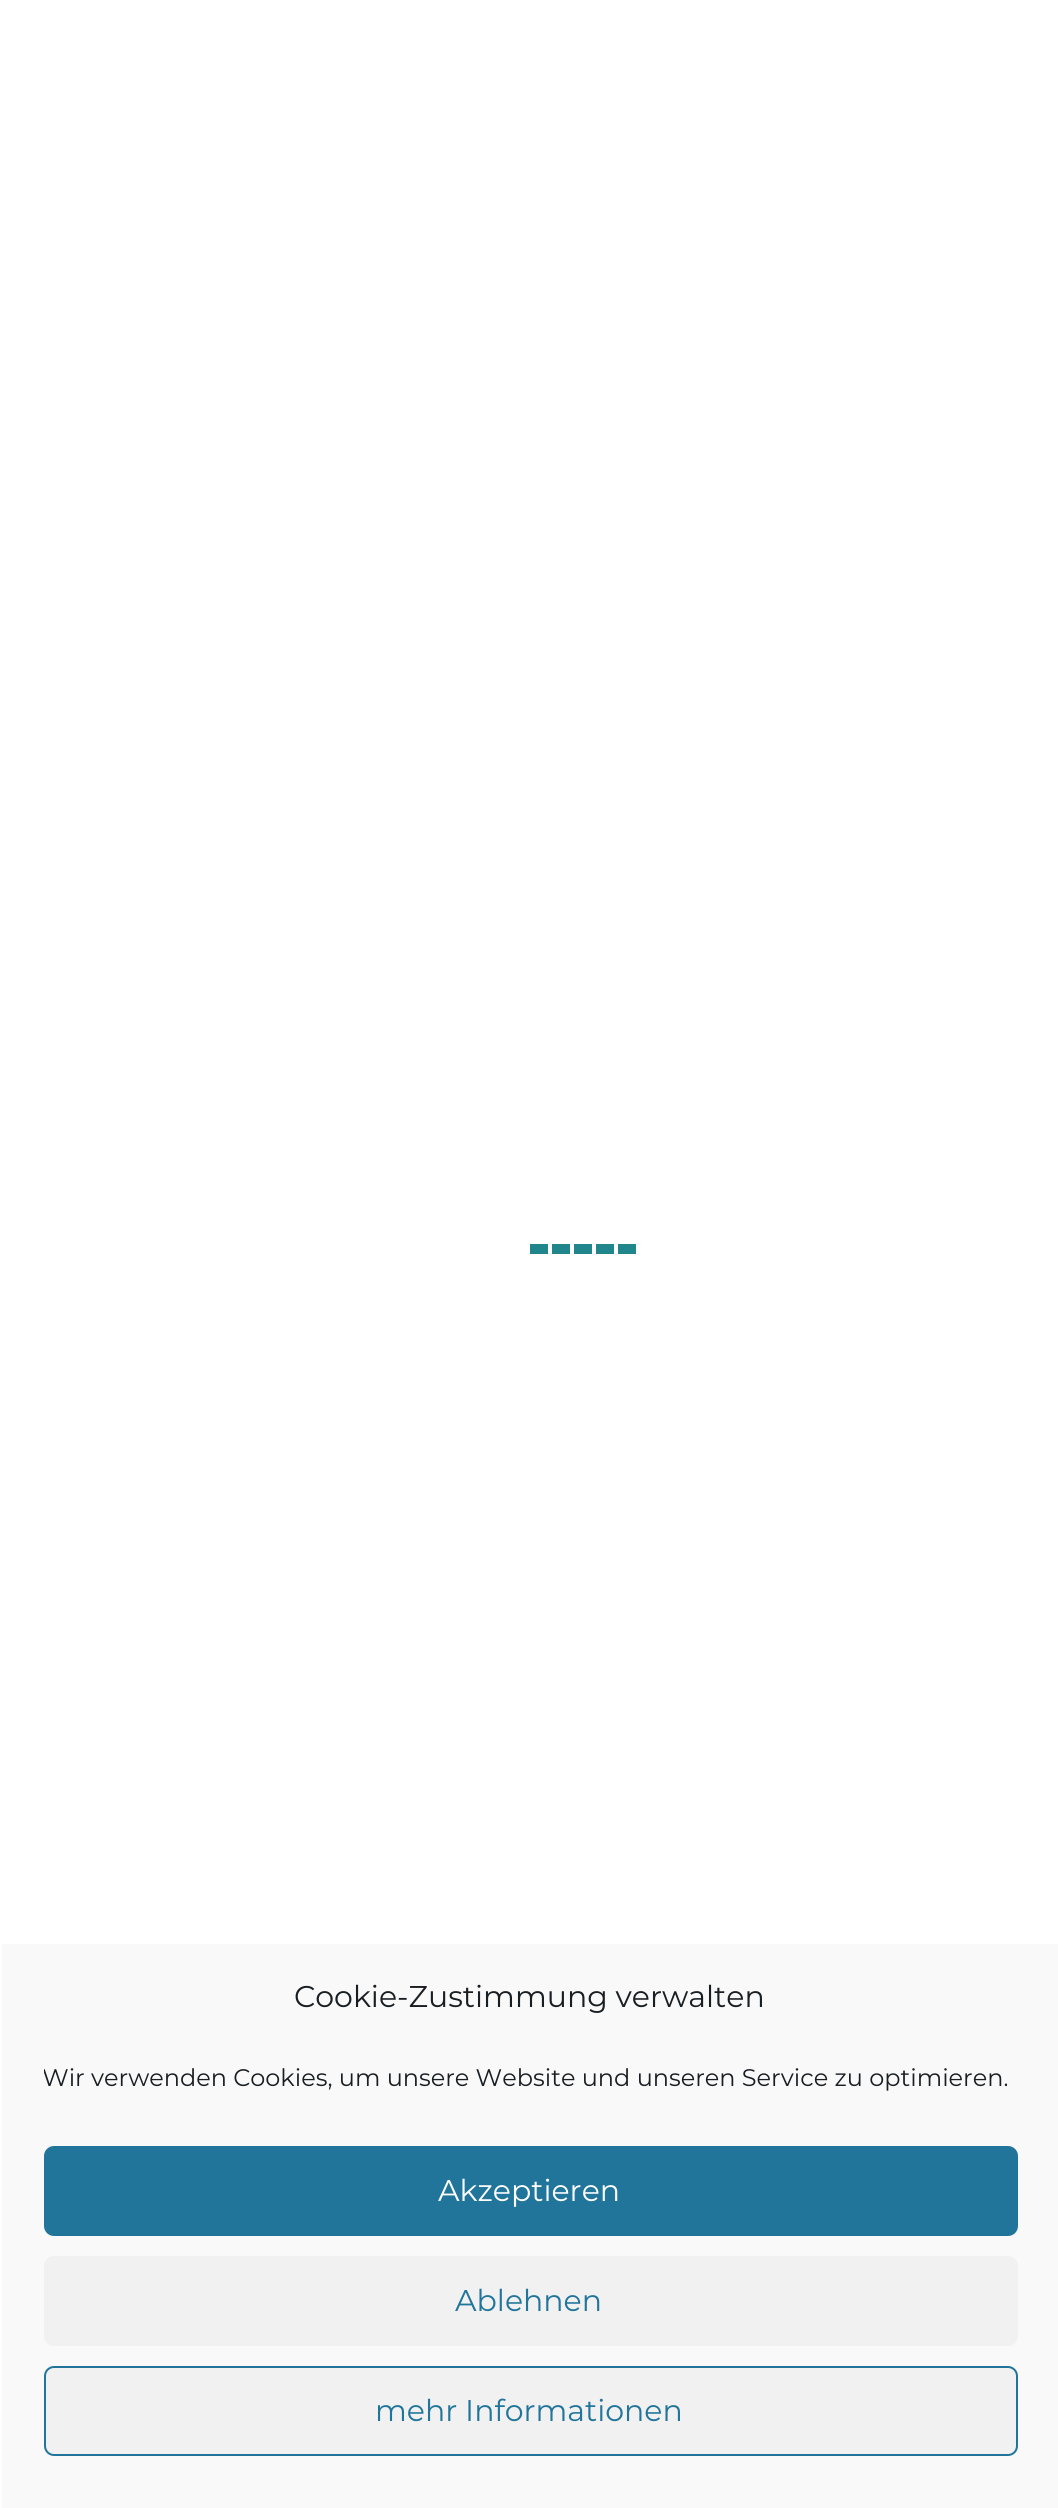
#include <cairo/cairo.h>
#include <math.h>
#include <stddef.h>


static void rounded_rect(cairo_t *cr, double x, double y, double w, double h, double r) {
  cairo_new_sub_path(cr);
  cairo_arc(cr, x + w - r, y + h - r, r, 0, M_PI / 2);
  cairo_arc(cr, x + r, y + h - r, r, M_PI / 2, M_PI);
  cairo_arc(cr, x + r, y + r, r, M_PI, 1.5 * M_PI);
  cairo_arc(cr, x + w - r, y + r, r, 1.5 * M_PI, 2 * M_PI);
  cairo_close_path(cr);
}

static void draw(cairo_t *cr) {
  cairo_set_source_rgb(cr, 1, 1, 1);
  cairo_paint(cr);
  cairo_set_source_rgb(cr, 33 / 255.0, 133 / 255.0, 140 / 255.0);
  cairo_rectangle(cr, 530, 1244, 18, 10);
  cairo_fill(cr);
  cairo_rectangle(cr, 552, 1244, 18, 10);
  cairo_fill(cr);
  cairo_rectangle(cr, 574, 1244, 18, 10);
  cairo_fill(cr);
  cairo_rectangle(cr, 596, 1244, 18, 10);
  cairo_fill(cr);
  cairo_rectangle(cr, 618, 1244, 18, 10);
  cairo_fill(cr);
  cairo_set_source_rgb(cr, 249 / 255.0, 249 / 255.0, 249 / 255.0);
  cairo_rectangle(cr, 2, 1944, 1056, 564);
  cairo_fill(cr);
  cairo_set_source_rgb(cr, 33 / 255.0, 117 / 255.0, 155 / 255.0);
  rounded_rect(cr, 45, 2147, 972, 88, 9);
  cairo_fill_preserve(cr);
  cairo_stroke(cr);
  cairo_set_source_rgb(cr, 241 / 255.0, 241 / 255.0, 241 / 255.0);
  rounded_rect(cr, 44, 2256, 974, 90, 10);
  cairo_fill(cr);
  rounded_rect(cr, 45, 2367, 972, 88, 9);
  cairo_fill_preserve(cr);
  cairo_set_source_rgb(cr, 33 / 255.0, 117 / 255.0, 155 / 255.0);
  cairo_stroke(cr);
  cairo_select_font_face(cr, "Montserrat", CAIRO_FONT_SLANT_NORMAL, CAIRO_FONT_WEIGHT_NORMAL);
  cairo_set_font_size(cr, 30);
  cairo_set_source_rgb(cr, 25 / 255.0, 30 / 255.0, 35 / 255.0);
  cairo_move_to(cr, 294, 2007);
  cairo_show_text(cr, "Cookie-Zustimmung verwalten");
  cairo_save(cr);
  cairo_rectangle(cr, 44, 2060, 974, 46);
  cairo_clip(cr);
  cairo_set_font_size(cr, 24);
  cairo_move_to(cr, 42, 2086);
  cairo_show_text(cr, "Wir verwenden Cookies, um unsere Website und unseren Service zu optimieren.");
  cairo_restore(cr);
  cairo_set_source_rgb(cr, 1, 1, 1);
  cairo_move_to(cr, 438, 2201);
  cairo_show_text(cr, "Akzeptieren");
  cairo_set_source_rgb(cr, 33 / 255.0, 117 / 255.0, 155 / 255.0);
  cairo_move_to(cr, 455, 2311);
  cairo_show_text(cr, "Ablehnen");
  cairo_move_to(cr, 375, 2421);
  cairo_show_text(cr, "mehr Informationen");
}

int main(void) {
  cairo_surface_t *surface = cairo_image_surface_create(CAIRO_FORMAT_RGB24, 1058, 2508);
  cairo_t *cr = cairo_create(surface);
  cairo_font_options_t *options = cairo_font_options_create();
  cairo_font_options_set_hint_metrics(options, CAIRO_HINT_METRICS_OFF);
  cairo_font_options_set_hint_style(options, CAIRO_HINT_STYLE_NONE);
  cairo_set_font_options(cr, options);
  cairo_set_miter_limit(cr, 4);
  draw(cr);
  cairo_surface_write_to_png(surface, "out.png");
  cairo_font_options_destroy(options);
  cairo_destroy(cr);
  cairo_surface_destroy(surface);
  return 0;
}
